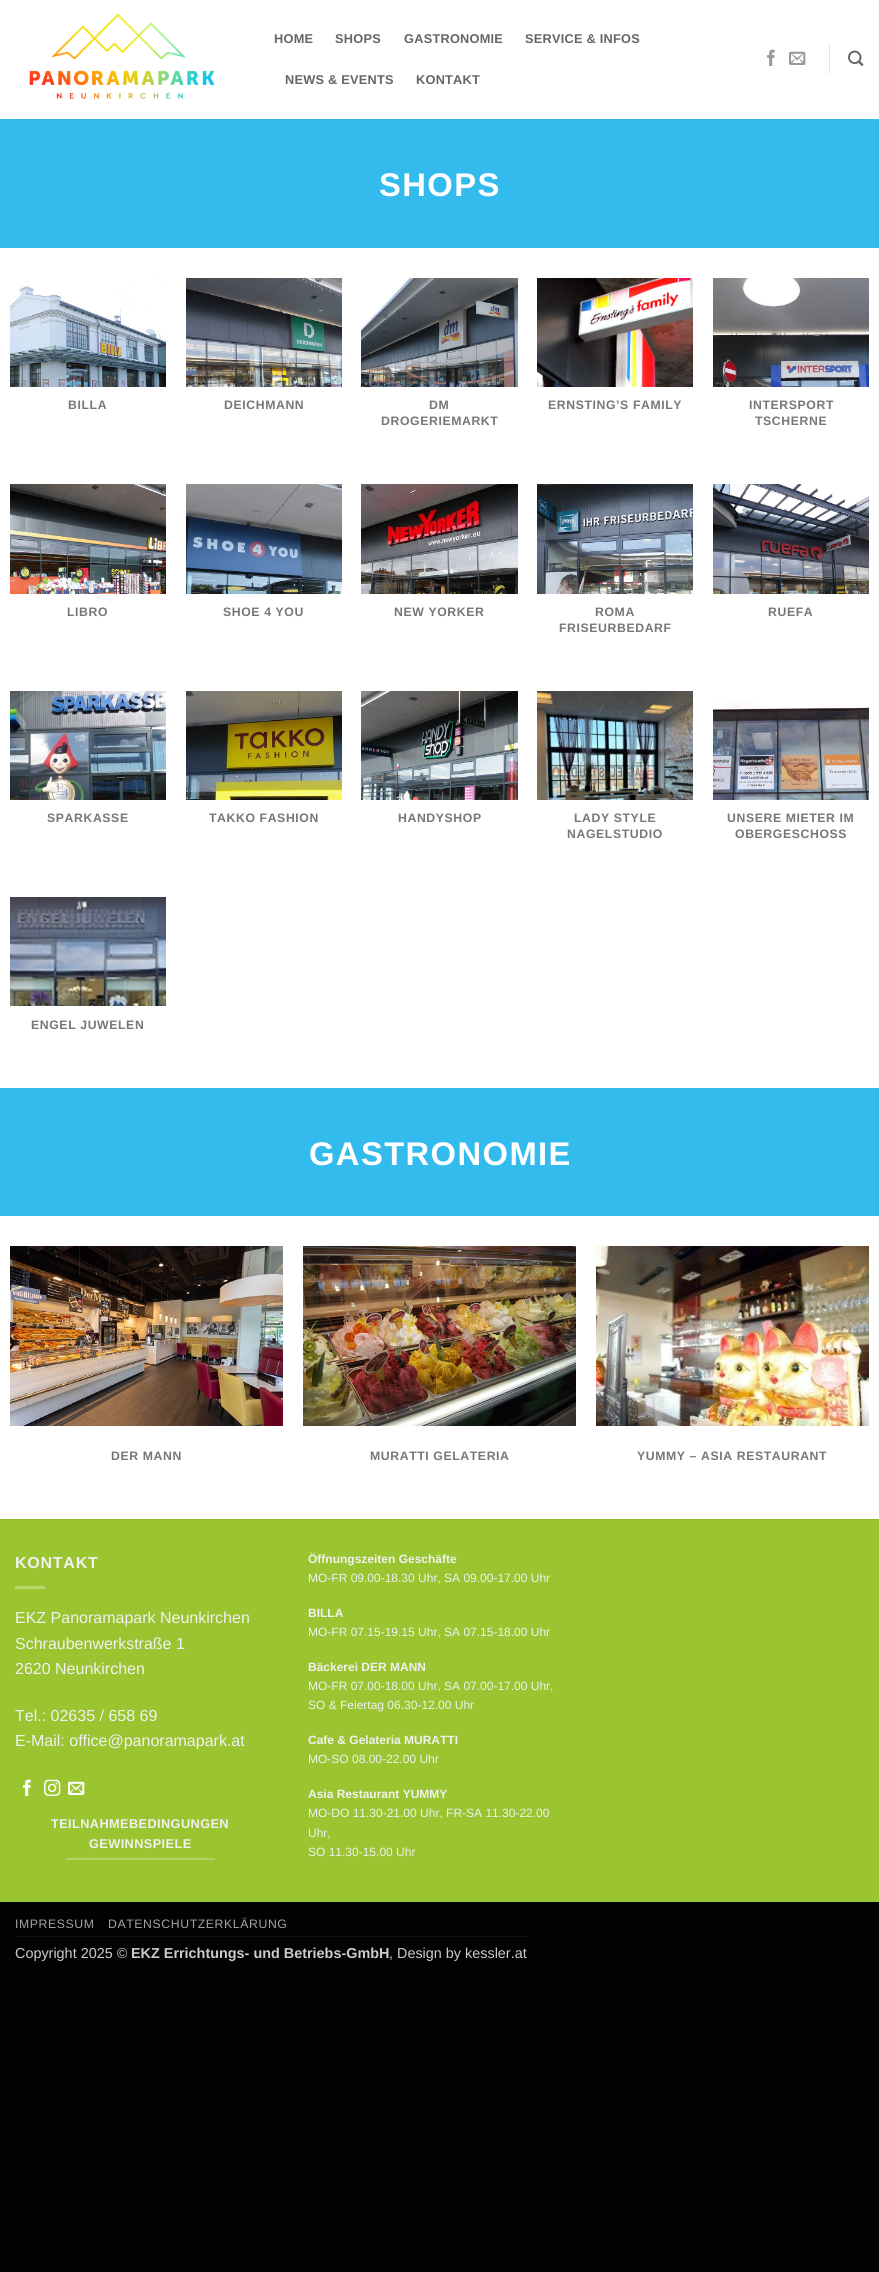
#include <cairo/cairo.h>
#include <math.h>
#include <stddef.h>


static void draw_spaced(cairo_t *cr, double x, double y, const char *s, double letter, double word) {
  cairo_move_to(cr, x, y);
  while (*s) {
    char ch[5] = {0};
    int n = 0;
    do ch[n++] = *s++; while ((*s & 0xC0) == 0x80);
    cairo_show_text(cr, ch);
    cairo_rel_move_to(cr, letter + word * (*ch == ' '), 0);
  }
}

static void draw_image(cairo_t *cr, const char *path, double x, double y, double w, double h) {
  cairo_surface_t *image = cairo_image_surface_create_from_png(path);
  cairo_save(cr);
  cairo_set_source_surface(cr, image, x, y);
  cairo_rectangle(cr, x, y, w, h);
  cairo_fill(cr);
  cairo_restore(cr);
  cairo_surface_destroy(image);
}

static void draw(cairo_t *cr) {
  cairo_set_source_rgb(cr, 2 / 255.0, 2 / 255.0, 2 / 255.0);
  cairo_paint(cr);
  cairo_set_source_rgb(cr, 1, 1, 1);
  cairo_rectangle(cr, 0, 0, 879, 1519);
  cairo_fill(cr);
  draw_image(cr, "images/1.png", 29, 13, 186, 86);
  draw_image(cr, "images/2.png", 767, 49, 8, 17);
  draw_image(cr, "images/3.png", 789, 51, 17, 14);
  cairo_set_source_rgb(cr, 230 / 255.0, 230 / 255.0, 230 / 255.0);
  cairo_rectangle(cr, 829, 44, 1, 30);
  cairo_fill(cr);
  draw_image(cr, "images/4.png", 848, 50, 16, 16);
  cairo_set_source_rgb(cr, 51 / 255.0, 187 / 255.0, 237 / 255.0);
  cairo_rectangle(cr, 0, 119, 879, 129);
  cairo_fill(cr);
  cairo_set_source_rgb(cr, 53 / 255.0, 176 / 255.0, 221 / 255.0);
  cairo_rectangle(cr, 15, 119, 849, 1);
  cairo_fill(cr);
  draw_image(cr, "images/5.png", 10, 278, 156, 109);
  draw_image(cr, "images/6.png", 186, 278, 156, 109);
  draw_image(cr, "images/7.png", 361, 278, 157, 109);
  draw_image(cr, "images/8.png", 537, 278, 156, 109);
  draw_image(cr, "images/9.png", 713, 278, 156, 109);
  draw_image(cr, "images/10.png", 10, 484, 156, 110);
  draw_image(cr, "images/11.png", 186, 484, 156, 110);
  draw_image(cr, "images/12.png", 361, 484, 157, 110);
  draw_image(cr, "images/13.png", 537, 484, 156, 110);
  draw_image(cr, "images/14.png", 713, 484, 156, 110);
  draw_image(cr, "images/15.png", 10, 691, 156, 109);
  draw_image(cr, "images/16.png", 186, 691, 156, 109);
  draw_image(cr, "images/17.png", 361, 691, 157, 109);
  draw_image(cr, "images/18.png", 537, 691, 156, 109);
  draw_image(cr, "images/19.png", 713, 702, 156, 98);
  draw_image(cr, "images/20.png", 10, 897, 156, 109);
  cairo_set_source_rgb(cr, 51 / 255.0, 187 / 255.0, 237 / 255.0);
  cairo_rectangle(cr, 0, 1088, 879, 128);
  cairo_fill(cr);
  draw_image(cr, "images/21.png", 10, 1246, 273, 180);
  draw_image(cr, "images/22.png", 303, 1246, 273, 180);
  draw_image(cr, "images/23.png", 596, 1246, 273, 180);
  cairo_set_source_rgb(cr, 154 / 255.0, 196 / 255.0, 48 / 255.0);
  cairo_rectangle(cr, 0, 1520, 879, 382);
  cairo_fill(cr);
  cairo_set_source_rgb(cr, 146 / 255.0, 186 / 255.0, 46 / 255.0);
  cairo_rectangle(cr, 0, 1519, 879, 1);
  cairo_fill(cr);
  cairo_set_source_rgb(cr, 184 / 255.0, 214 / 255.0, 110 / 255.0);
  cairo_rectangle(cr, 15, 1586, 30, 3);
  cairo_fill(cr);
  draw_image(cr, "images/24.png", 23, 1779, 8, 17);
  draw_image(cr, "images/25.png", 44, 1779, 17, 17);
  draw_image(cr, "images/26.png", 68, 1781, 17, 14);
  cairo_set_source_rgb(cr, 180 / 255.0, 210 / 255.0, 106 / 255.0);
  cairo_rectangle(cr, 66, 1858, 149, 2);
  cairo_fill(cr);
  cairo_set_source_rgb(cr, 18 / 255.0, 18 / 255.0, 18 / 255.0);
  cairo_rectangle(cr, 15, 1936, 512, 1);
  cairo_fill(cr);
  cairo_select_font_face(cr, "Liberation Sans", CAIRO_FONT_SLANT_NORMAL, CAIRO_FONT_WEIGHT_BOLD);
  cairo_set_font_size(cr, 12.75);
  cairo_set_source_rgb(cr, 101 / 255.0, 101 / 255.0, 101 / 255.0);
  draw_spaced(cr, 274, 43, "HOME", 0.25, 0);
  draw_spaced(cr, 335, 43, "SHOPS", 0.25, 0);
  draw_spaced(cr, 404, 43, "GASTRONOMIE", 0.25, 0);
  draw_spaced(cr, 525, 43, "SERVICE & INFOS", 0.25, 0);
  draw_spaced(cr, 285, 84, "NEWS & EVENTS", 0.25, 0);
  draw_spaced(cr, 416, 84, "KONTAKT", 0.25, 0);
  cairo_set_font_size(cr, 32.75);
  cairo_set_source_rgb(cr, 1, 1, 1);
  draw_spaced(cr, 379, 196, "SHOPS", 1.4, 0);
  cairo_set_font_size(cr, 12.25);
  cairo_set_source_rgb(cr, 119 / 255.0, 119 / 255.0, 119 / 255.0);
  draw_spaced(cr, 68, 409, "BILLA", 0.6, 0);
  draw_spaced(cr, 224, 409, "DEICHMANN", 0.6, 0);
  draw_spaced(cr, 429, 409, "DM", 0.6, 0);
  draw_spaced(cr, 381, 425, "DROGERIEMARKT", 0.6, 0);
  draw_spaced(cr, 548, 409, "ERNSTING’S FAMILY", 0.6, 0);
  draw_spaced(cr, 749, 409, "INTERSPORT", 0.6, 0);
  draw_spaced(cr, 755, 425, "TSCHERNE", 0.6, 0);
  draw_spaced(cr, 67, 616, "LIBRO", 0.6, 0);
  draw_spaced(cr, 223, 616, "SHOE 4 YOU", 0.6, 0);
  draw_spaced(cr, 394, 616, "NEW YORKER", 0.6, 0);
  draw_spaced(cr, 595, 616, "ROMA", 0.6, 0);
  draw_spaced(cr, 559, 632, "FRISEURBEDARF", 0.6, 0);
  draw_spaced(cr, 768, 616, "RUEFA", 0.6, 0);
  draw_spaced(cr, 47, 822, "SPARKASSE", 0.6, 0);
  draw_spaced(cr, 209, 822, "TAKKO FASHION", 0.6, 0);
  draw_spaced(cr, 398, 822, "HANDYSHOP", 0.6, 0);
  draw_spaced(cr, 574, 822, "LADY STYLE", 0.6, 0);
  draw_spaced(cr, 567, 838, "NAGELSTUDIO", 0.6, 0);
  draw_spaced(cr, 727, 822, "UNSERE MIETER IM", 0.6, 0);
  draw_spaced(cr, 735, 838, "OBERGESCHOSS", 0.6, 0);
  draw_spaced(cr, 31, 1029, "ENGEL JUWELEN", 0.6, 0);
  cairo_set_font_size(cr, 32.75);
  cairo_set_source_rgb(cr, 1, 1, 1);
  draw_spaced(cr, 309, 1165, "GASTRONOMIE", 1.4, 0);
  cairo_set_font_size(cr, 12.25);
  cairo_set_source_rgb(cr, 119 / 255.0, 119 / 255.0, 119 / 255.0);
  draw_spaced(cr, 111, 1460, "DER MANN", 0.6, 0);
  draw_spaced(cr, 370, 1460, "MURATTI GELATERIA", 0.6, 0);
  draw_spaced(cr, 637, 1460, "YUMMY – ASIA RESTAURANT", 0.6, 0);
  cairo_set_font_size(cr, 16);
  cairo_set_source_rgb(cr, 241 / 255.0, 241 / 255.0, 241 / 255.0);
  draw_spaced(cr, 15, 1568, "KONTAKT", 0.75, 0);
  cairo_select_font_face(cr, "Liberation Sans", CAIRO_FONT_SLANT_NORMAL, CAIRO_FONT_WEIGHT_NORMAL);
  cairo_move_to(cr, 15, 1623);
  cairo_show_text(cr, "EKZ Panoramapark Neunkirchen");
  cairo_move_to(cr, 15, 1649);
  cairo_show_text(cr, "Schraubenwerkstraße 1");
  cairo_move_to(cr, 15, 1674);
  cairo_show_text(cr, "2620 Neunkirchen");
  cairo_move_to(cr, 15, 1721);
  cairo_show_text(cr, "Tel.: 02635 / 658 69");
  cairo_move_to(cr, 15, 1746);
  cairo_show_text(cr, "E-Mail: office@panoramapark.at");
  cairo_select_font_face(cr, "Liberation Sans", CAIRO_FONT_SLANT_NORMAL, CAIRO_FONT_WEIGHT_BOLD);
  cairo_set_font_size(cr, 12.75);
  draw_spaced(cr, 51, 1828, "TEILNAHMEBEDINGUNGEN", 0.4, 0);
  draw_spaced(cr, 89, 1848, "GEWINNSPIELE", 0.4, 0);
  cairo_set_font_size(cr, 12);
  cairo_move_to(cr, 308, 1563);
  cairo_show_text(cr, "Öffnungszeiten Geschäfte");
  cairo_select_font_face(cr, "Liberation Sans", CAIRO_FONT_SLANT_NORMAL, CAIRO_FONT_WEIGHT_NORMAL);
  cairo_move_to(cr, 308, 1582);
  cairo_show_text(cr, "MO-FR 09.00-18.30 Uhr, SA 09.00-17.00 Uhr");
  cairo_select_font_face(cr, "Liberation Sans", CAIRO_FONT_SLANT_NORMAL, CAIRO_FONT_WEIGHT_BOLD);
  cairo_move_to(cr, 308, 1617);
  cairo_show_text(cr, "BILLA");
  cairo_select_font_face(cr, "Liberation Sans", CAIRO_FONT_SLANT_NORMAL, CAIRO_FONT_WEIGHT_NORMAL);
  cairo_move_to(cr, 308, 1636);
  cairo_show_text(cr, "MO-FR 07.15-19.15 Uhr, SA 07.15-18.00 Uhr");
  cairo_select_font_face(cr, "Liberation Sans", CAIRO_FONT_SLANT_NORMAL, CAIRO_FONT_WEIGHT_BOLD);
  cairo_move_to(cr, 308, 1671);
  cairo_show_text(cr, "Bäckerei DER MANN");
  cairo_select_font_face(cr, "Liberation Sans", CAIRO_FONT_SLANT_NORMAL, CAIRO_FONT_WEIGHT_NORMAL);
  cairo_move_to(cr, 308, 1690);
  cairo_show_text(cr, "MO-FR 07.00-18.00 Uhr, SA 07.00-17.00 Uhr,");
  cairo_move_to(cr, 308, 1709);
  cairo_show_text(cr, "SO & Feiertag 06.30-12.00 Uhr");
  cairo_select_font_face(cr, "Liberation Sans", CAIRO_FONT_SLANT_NORMAL, CAIRO_FONT_WEIGHT_BOLD);
  cairo_move_to(cr, 308, 1744);
  cairo_show_text(cr, "Cafe & Gelateria MURATTI");
  cairo_select_font_face(cr, "Liberation Sans", CAIRO_FONT_SLANT_NORMAL, CAIRO_FONT_WEIGHT_NORMAL);
  cairo_move_to(cr, 308, 1763);
  cairo_show_text(cr, "MO-SO 08.00-22.00 Uhr");
  cairo_select_font_face(cr, "Liberation Sans", CAIRO_FONT_SLANT_NORMAL, CAIRO_FONT_WEIGHT_BOLD);
  cairo_move_to(cr, 308, 1798);
  cairo_show_text(cr, "Asia Restaurant YUMMY");
  cairo_select_font_face(cr, "Liberation Sans", CAIRO_FONT_SLANT_NORMAL, CAIRO_FONT_WEIGHT_NORMAL);
  cairo_move_to(cr, 308, 1817);
  cairo_show_text(cr, "MO-DO 11.30-21.00 Uhr, FR-SA 11.30-22.00");
  cairo_move_to(cr, 308, 1837);
  cairo_show_text(cr, "Uhr,");
  cairo_move_to(cr, 308, 1856);
  cairo_show_text(cr, "SO 11.30-15.00 Uhr");
  cairo_set_font_size(cr, 12.25);
  cairo_set_source_rgb(cr, 164 / 255.0, 164 / 255.0, 164 / 255.0);
  draw_spaced(cr, 15, 1928, "IMPRESSUM", 0.6, 0);
  draw_spaced(cr, 108, 1928, "DATENSCHUTZERKLÄRUNG", 0.6, 0);
  cairo_set_font_size(cr, 14.4);
  cairo_set_source_rgb(cr, 204 / 255.0, 204 / 255.0, 204 / 255.0);
  cairo_move_to(cr, 15, 1958);
  cairo_show_text(cr, "Copyright 2025 ©");
  cairo_select_font_face(cr, "Liberation Sans", CAIRO_FONT_SLANT_NORMAL, CAIRO_FONT_WEIGHT_BOLD);
  cairo_move_to(cr, 131, 1958);
  cairo_show_text(cr, "EKZ Errichtungs- und Betriebs-GmbH");
  cairo_select_font_face(cr, "Liberation Sans", CAIRO_FONT_SLANT_NORMAL, CAIRO_FONT_WEIGHT_NORMAL);
  cairo_move_to(cr, 389, 1958);
  cairo_show_text(cr, ", Design by kessler.at");
}

int main(void) {
  cairo_surface_t *surface = cairo_image_surface_create(CAIRO_FORMAT_RGB24, 879, 2272);
  cairo_t *cr = cairo_create(surface);
  cairo_font_options_t *options = cairo_font_options_create();
  cairo_font_options_set_hint_metrics(options, CAIRO_HINT_METRICS_OFF);
  cairo_font_options_set_hint_style(options, CAIRO_HINT_STYLE_NONE);
  cairo_set_font_options(cr, options);
  cairo_set_miter_limit(cr, 4);
  draw(cr);
  cairo_surface_write_to_png(surface, "out.png");
  cairo_font_options_destroy(options);
  cairo_destroy(cr);
  cairo_surface_destroy(surface);
  return 0;
}
